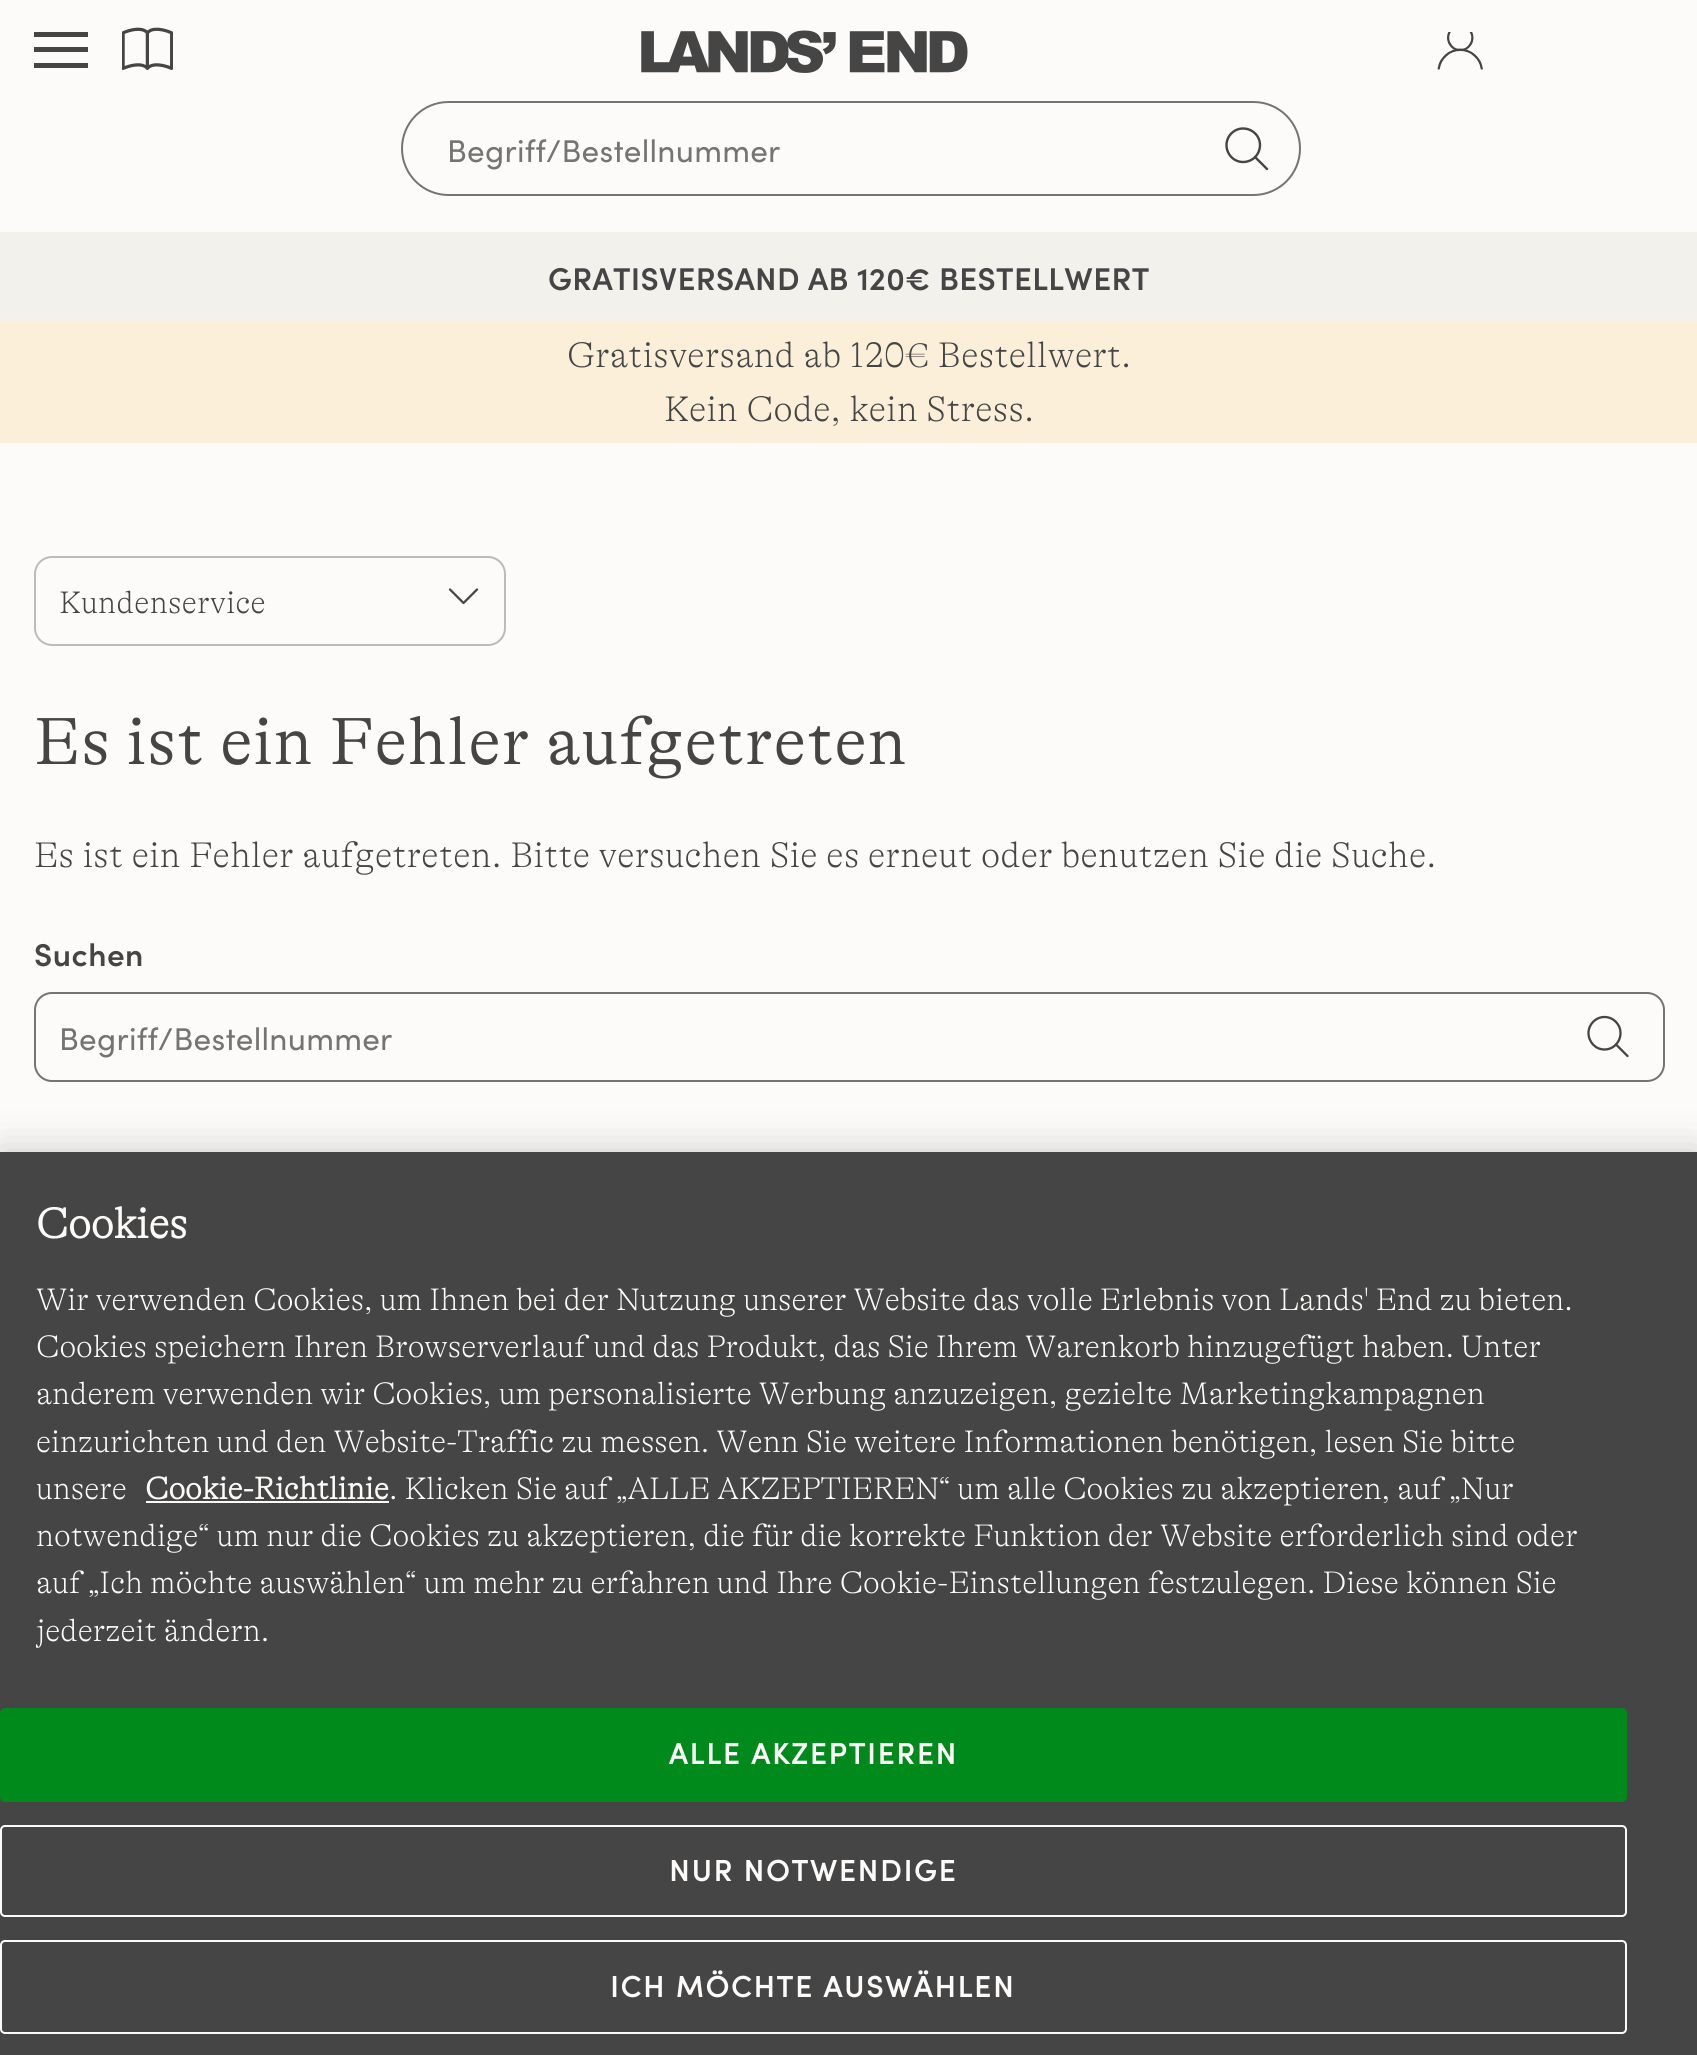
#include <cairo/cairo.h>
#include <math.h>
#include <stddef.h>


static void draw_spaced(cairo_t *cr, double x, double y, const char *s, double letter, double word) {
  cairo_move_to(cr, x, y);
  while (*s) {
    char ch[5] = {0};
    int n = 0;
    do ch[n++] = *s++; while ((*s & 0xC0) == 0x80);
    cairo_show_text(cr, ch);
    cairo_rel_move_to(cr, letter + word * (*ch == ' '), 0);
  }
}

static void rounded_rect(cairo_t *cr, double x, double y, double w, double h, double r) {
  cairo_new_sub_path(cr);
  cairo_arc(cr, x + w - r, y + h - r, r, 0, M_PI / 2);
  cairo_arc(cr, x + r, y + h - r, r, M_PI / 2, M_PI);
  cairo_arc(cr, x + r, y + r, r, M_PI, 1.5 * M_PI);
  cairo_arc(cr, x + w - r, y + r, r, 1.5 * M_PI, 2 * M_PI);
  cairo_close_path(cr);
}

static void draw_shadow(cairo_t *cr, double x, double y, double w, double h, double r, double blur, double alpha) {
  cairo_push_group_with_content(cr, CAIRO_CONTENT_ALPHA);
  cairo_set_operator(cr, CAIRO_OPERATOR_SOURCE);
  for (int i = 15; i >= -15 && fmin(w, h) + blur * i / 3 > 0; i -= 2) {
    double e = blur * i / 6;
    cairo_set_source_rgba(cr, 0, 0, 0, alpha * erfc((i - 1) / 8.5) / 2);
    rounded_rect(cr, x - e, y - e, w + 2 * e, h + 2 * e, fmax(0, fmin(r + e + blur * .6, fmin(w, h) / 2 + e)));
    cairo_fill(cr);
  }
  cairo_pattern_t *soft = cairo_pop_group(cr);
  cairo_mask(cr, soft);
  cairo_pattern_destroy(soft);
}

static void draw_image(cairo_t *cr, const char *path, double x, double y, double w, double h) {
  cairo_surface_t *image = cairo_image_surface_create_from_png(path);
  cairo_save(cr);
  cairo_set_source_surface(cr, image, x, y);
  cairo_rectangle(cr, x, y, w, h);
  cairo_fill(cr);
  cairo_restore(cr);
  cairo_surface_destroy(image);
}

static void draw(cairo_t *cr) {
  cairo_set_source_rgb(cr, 253 / 255.0, 251 / 255.0, 249 / 255.0);
  cairo_paint(cr);
  cairo_set_source_rgb(cr, 69 / 255.0, 69 / 255.0, 69 / 255.0);
  cairo_rectangle(cr, 34, 32, 54, 5);
  cairo_fill(cr);
  cairo_rectangle(cr, 34, 47, 54, 5);
  cairo_fill(cr);
  cairo_rectangle(cr, 34, 63, 54, 5);
  cairo_fill(cr);
  draw_image(cr, "images/1.png", 122, 27, 51, 43);
  draw_image(cr, "images/2.png", 641, 30, 327, 43);
  draw_image(cr, "images/3.png", 1437, 32, 46, 38);
  rounded_rect(cr, 402, 102, 898, 93, 46.5);
  cairo_set_source_rgb(cr, 116 / 255.0, 116 / 255.0, 116 / 255.0);
  cairo_stroke(cr);
  cairo_new_path(cr);
  cairo_move_to(cr, 1243, 162);
  cairo_curve_to(cr, 1252.5, 162, 1260, 154.5, 1260, 145);
  cairo_curve_to(cr, 1260, 136, 1252.5, 128.5, 1243, 128.5);
  cairo_curve_to(cr, 1234, 128.5, 1226.5, 136, 1226.5, 145);
  cairo_curve_to(cr, 1226.5, 154.5, 1234, 162, 1243, 162);
  cairo_close_path(cr);
  cairo_set_source_rgb(cr, 69 / 255.0, 69 / 255.0, 69 / 255.0);
  cairo_set_line_width(cr, 2.4);
  cairo_stroke(cr);
  cairo_new_path(cr);
  cairo_move_to(cr, 1255, 157);
  cairo_line_to(cr, 1267, 169);
  cairo_set_line_cap(cr, CAIRO_LINE_CAP_ROUND);
  cairo_stroke(cr);
  cairo_set_source_rgb(cr, 243 / 255.0, 241 / 255.0, 235 / 255.0);
  cairo_rectangle(cr, 0, 232, 1697, 90);
  cairo_fill(cr);
  cairo_set_source_rgb(cr, 251 / 255.0, 239 / 255.0, 218 / 255.0);
  cairo_rectangle(cr, 0, 322, 1697, 121);
  cairo_fill(cr);
  rounded_rect(cr, 35, 557, 470, 88, 17);
  cairo_set_source_rgb(cr, 187 / 255.0, 187 / 255.0, 187 / 255.0);
  cairo_set_line_width(cr, 2);
  cairo_set_line_cap(cr, CAIRO_LINE_CAP_BUTT);
  cairo_stroke(cr);
  draw_image(cr, "images/4.png", 448, 588, 31, 17);
  rounded_rect(cr, 35, 993, 1629, 88, 17);
  cairo_set_source_rgb(cr, 116 / 255.0, 116 / 255.0, 116 / 255.0);
  cairo_stroke(cr);
  cairo_new_path(cr);
  cairo_move_to(cr, 1604.5, 1049.5);
  cairo_curve_to(cr, 1613.5, 1049.5, 1620.5, 1042, 1620.5, 1033);
  cairo_curve_to(cr, 1620.5, 1024.5, 1613.5, 1017, 1604.5, 1017);
  cairo_curve_to(cr, 1595.5, 1017, 1588.5, 1024.5, 1588.5, 1033);
  cairo_curve_to(cr, 1588.5, 1042, 1595.5, 1049.5, 1604.5, 1049.5);
  cairo_close_path(cr);
  cairo_set_source_rgb(cr, 69 / 255.0, 69 / 255.0, 69 / 255.0);
  cairo_set_line_width(cr, 2.3);
  cairo_stroke(cr);
  cairo_new_path(cr);
  cairo_move_to(cr, 1616, 1044.5);
  cairo_line_to(cr, 1627.5, 1056);
  cairo_set_line_cap(cr, CAIRO_LINE_CAP_ROUND);
  cairo_stroke(cr);
  cairo_set_source_rgb(cr, 0, 0, 0);
  draw_shadow(cr, 0, 1152, 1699, 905, 0, 20, 0.2);
  cairo_set_source_rgb(cr, 69 / 255.0, 69 / 255.0, 69 / 255.0);
  cairo_rectangle(cr, 0, 1152, 1697, 903);
  cairo_fill(cr);
  cairo_set_source_rgb(cr, 253 / 255.0, 251 / 255.0, 249 / 255.0);
  cairo_rectangle(cr, 146, 1501, 243, 2);
  cairo_fill(cr);
  cairo_set_source_rgb(cr, 0, 138 / 255.0, 28 / 255.0);
  rounded_rect(cr, 1, 1709, 1625, 92, 4);
  cairo_fill_preserve(cr);
  cairo_set_line_width(cr, 2);
  cairo_set_line_cap(cr, CAIRO_LINE_CAP_BUTT);
  cairo_stroke(cr);
  rounded_rect(cr, 1, 1826, 1625, 90, 4);
  cairo_set_source_rgb(cr, 253 / 255.0, 251 / 255.0, 249 / 255.0);
  cairo_stroke(cr);
  rounded_rect(cr, 1, 1941, 1625, 92, 4);
  cairo_stroke(cr);
  cairo_select_font_face(cr, "Sofia", CAIRO_FONT_SLANT_NORMAL, CAIRO_FONT_WEIGHT_NORMAL);
  cairo_set_font_size(cr, 31.5);
  cairo_set_source_rgb(cr, 116 / 255.0, 116 / 255.0, 116 / 255.0);
  draw_spaced(cr, 447, 162, "Begriff/Bestellnummer", 0.3, 0);
  cairo_select_font_face(cr, "Sofia", CAIRO_FONT_SLANT_NORMAL, CAIRO_FONT_WEIGHT_BOLD);
  cairo_set_source_rgb(cr, 69 / 255.0, 69 / 255.0, 69 / 255.0);
  draw_spaced(cr, 548, 290, "GRATISVERSAND AB 120€ BESTELLWERT", 0.35, 0);
  cairo_select_font_face(cr, "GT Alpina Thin", CAIRO_FONT_SLANT_NORMAL, CAIRO_FONT_WEIGHT_NORMAL);
  cairo_set_font_size(cr, 36);
  draw_spaced(cr, 567, 367, "Gratisversand ab 120€ Bestellwert.", 0.35, 0);
  draw_spaced(cr, 664, 421, "Kein Code, kein Stress.", 0.35, 0);
  cairo_set_font_size(cr, 31.5);
  draw_spaced(cr, 59, 613, "Kundenservice", 0.35, 0);
  cairo_select_font_face(cr, "GT Alpina Light", CAIRO_FONT_SLANT_NORMAL, CAIRO_FONT_WEIGHT_NORMAL);
  cairo_set_font_size(cr, 67.5);
  draw_spaced(cr, 34, 764, "Es ist ein Fehler aufgetreten", 1.35, 0);
  cairo_select_font_face(cr, "GT Alpina Thin", CAIRO_FONT_SLANT_NORMAL, CAIRO_FONT_WEIGHT_NORMAL);
  cairo_set_font_size(cr, 36);
  draw_spaced(cr, 34, 867, "Es ist ein Fehler aufgetreten. Bitte versuchen Sie es erneut oder benutzen Sie die Suche.", 0.35, 0);
  cairo_select_font_face(cr, "Sofia", CAIRO_FONT_SLANT_NORMAL, CAIRO_FONT_WEIGHT_BOLD);
  cairo_set_font_size(cr, 31.5);
  draw_spaced(cr, 34, 966, "Suchen", 0.5, 0);
  cairo_select_font_face(cr, "Sofia", CAIRO_FONT_SLANT_NORMAL, CAIRO_FONT_WEIGHT_NORMAL);
  cairo_set_source_rgb(cr, 116 / 255.0, 116 / 255.0, 116 / 255.0);
  draw_spaced(cr, 59, 1050, "Begriff/Bestellnummer", 0.3, 0);
  cairo_select_font_face(cr, "GT Alpina", CAIRO_FONT_SLANT_NORMAL, CAIRO_FONT_WEIGHT_BOLD);
  cairo_set_font_size(cr, 43);
  cairo_set_source_rgb(cr, 253 / 255.0, 251 / 255.0, 249 / 255.0);
  cairo_move_to(cr, 36, 1238);
  cairo_show_text(cr, "Cookies");
  cairo_select_font_face(cr, "GT Alpina Thin", CAIRO_FONT_SLANT_NORMAL, CAIRO_FONT_WEIGHT_NORMAL);
  cairo_set_font_size(cr, 31.5);
  cairo_move_to(cr, 36, 1310);
  cairo_show_text(cr, "Wir verwenden Cookies, um Ihnen bei der Nutzung unserer Website das volle Erlebnis von Lands' End zu bieten.");
  cairo_move_to(cr, 36, 1357);
  cairo_show_text(cr, "Cookies speichern Ihren Browserverlauf und das Produkt, das Sie Ihrem Warenkorb hinzugefügt haben. Unter");
  cairo_move_to(cr, 36, 1404);
  cairo_show_text(cr, "anderem verwenden wir Cookies, um personalisierte Werbung anzuzeigen, gezielte Marketingkampagnen");
  cairo_move_to(cr, 36, 1452);
  cairo_show_text(cr, "einzurichten und den Website-Traffic zu messen. Wenn Sie weitere Informationen benötigen, lesen Sie bitte");
  cairo_move_to(cr, 36, 1499);
  cairo_show_text(cr, "unsere");
  cairo_select_font_face(cr, "GT Alpina", CAIRO_FONT_SLANT_NORMAL, CAIRO_FONT_WEIGHT_BOLD);
  cairo_move_to(cr, 145, 1499);
  cairo_show_text(cr, "Cookie-Richtlinie");
  cairo_select_font_face(cr, "GT Alpina Thin", CAIRO_FONT_SLANT_NORMAL, CAIRO_FONT_WEIGHT_NORMAL);
  cairo_move_to(cr, 389, 1499);
  cairo_show_text(cr, ". Klicken Sie auf „ALLE AKZEPTIEREN“ um alle Cookies zu akzeptieren, auf „Nur");
  cairo_move_to(cr, 36, 1546);
  cairo_show_text(cr, "notwendige“ um nur die Cookies zu akzeptieren, die für die korrekte Funktion der Website erforderlich sind oder");
  cairo_move_to(cr, 36, 1593);
  cairo_show_text(cr, "auf „Ich möchte auswählen“ um mehr zu erfahren und Ihre Cookie-Einstellungen festzulegen. Diese können Sie");
  cairo_save(cr);
  cairo_rectangle(cr, 36, 1197, 1541, 488);
  cairo_clip(cr);
  cairo_move_to(cr, 36, 1641);
  cairo_show_text(cr, "jederzeit ändern.");
  cairo_restore(cr);
  cairo_select_font_face(cr, "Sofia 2", CAIRO_FONT_SLANT_NORMAL, CAIRO_FONT_WEIGHT_BOLD);
  cairo_set_font_size(cr, 29.25);
  draw_spaced(cr, 669, 1764, "ALLE AKZEPTIEREN", 2.3, 0);
  draw_spaced(cr, 669, 1881, "NUR NOTWENDIGE", 2.3, 0);
  draw_spaced(cr, 610, 1997, "ICH MÖCHTE AUSWÄHLEN", 2.3, 0);
}

int main(void) {
  cairo_surface_t *surface = cairo_image_surface_create(CAIRO_FORMAT_RGB24, 1697, 2055);
  cairo_t *cr = cairo_create(surface);
  cairo_font_options_t *options = cairo_font_options_create();
  cairo_font_options_set_hint_metrics(options, CAIRO_HINT_METRICS_OFF);
  cairo_font_options_set_hint_style(options, CAIRO_HINT_STYLE_NONE);
  cairo_set_font_options(cr, options);
  cairo_set_miter_limit(cr, 4);
  draw(cr);
  cairo_surface_write_to_png(surface, "out.png");
  cairo_font_options_destroy(options);
  cairo_destroy(cr);
  cairo_surface_destroy(surface);
  return 0;
}
